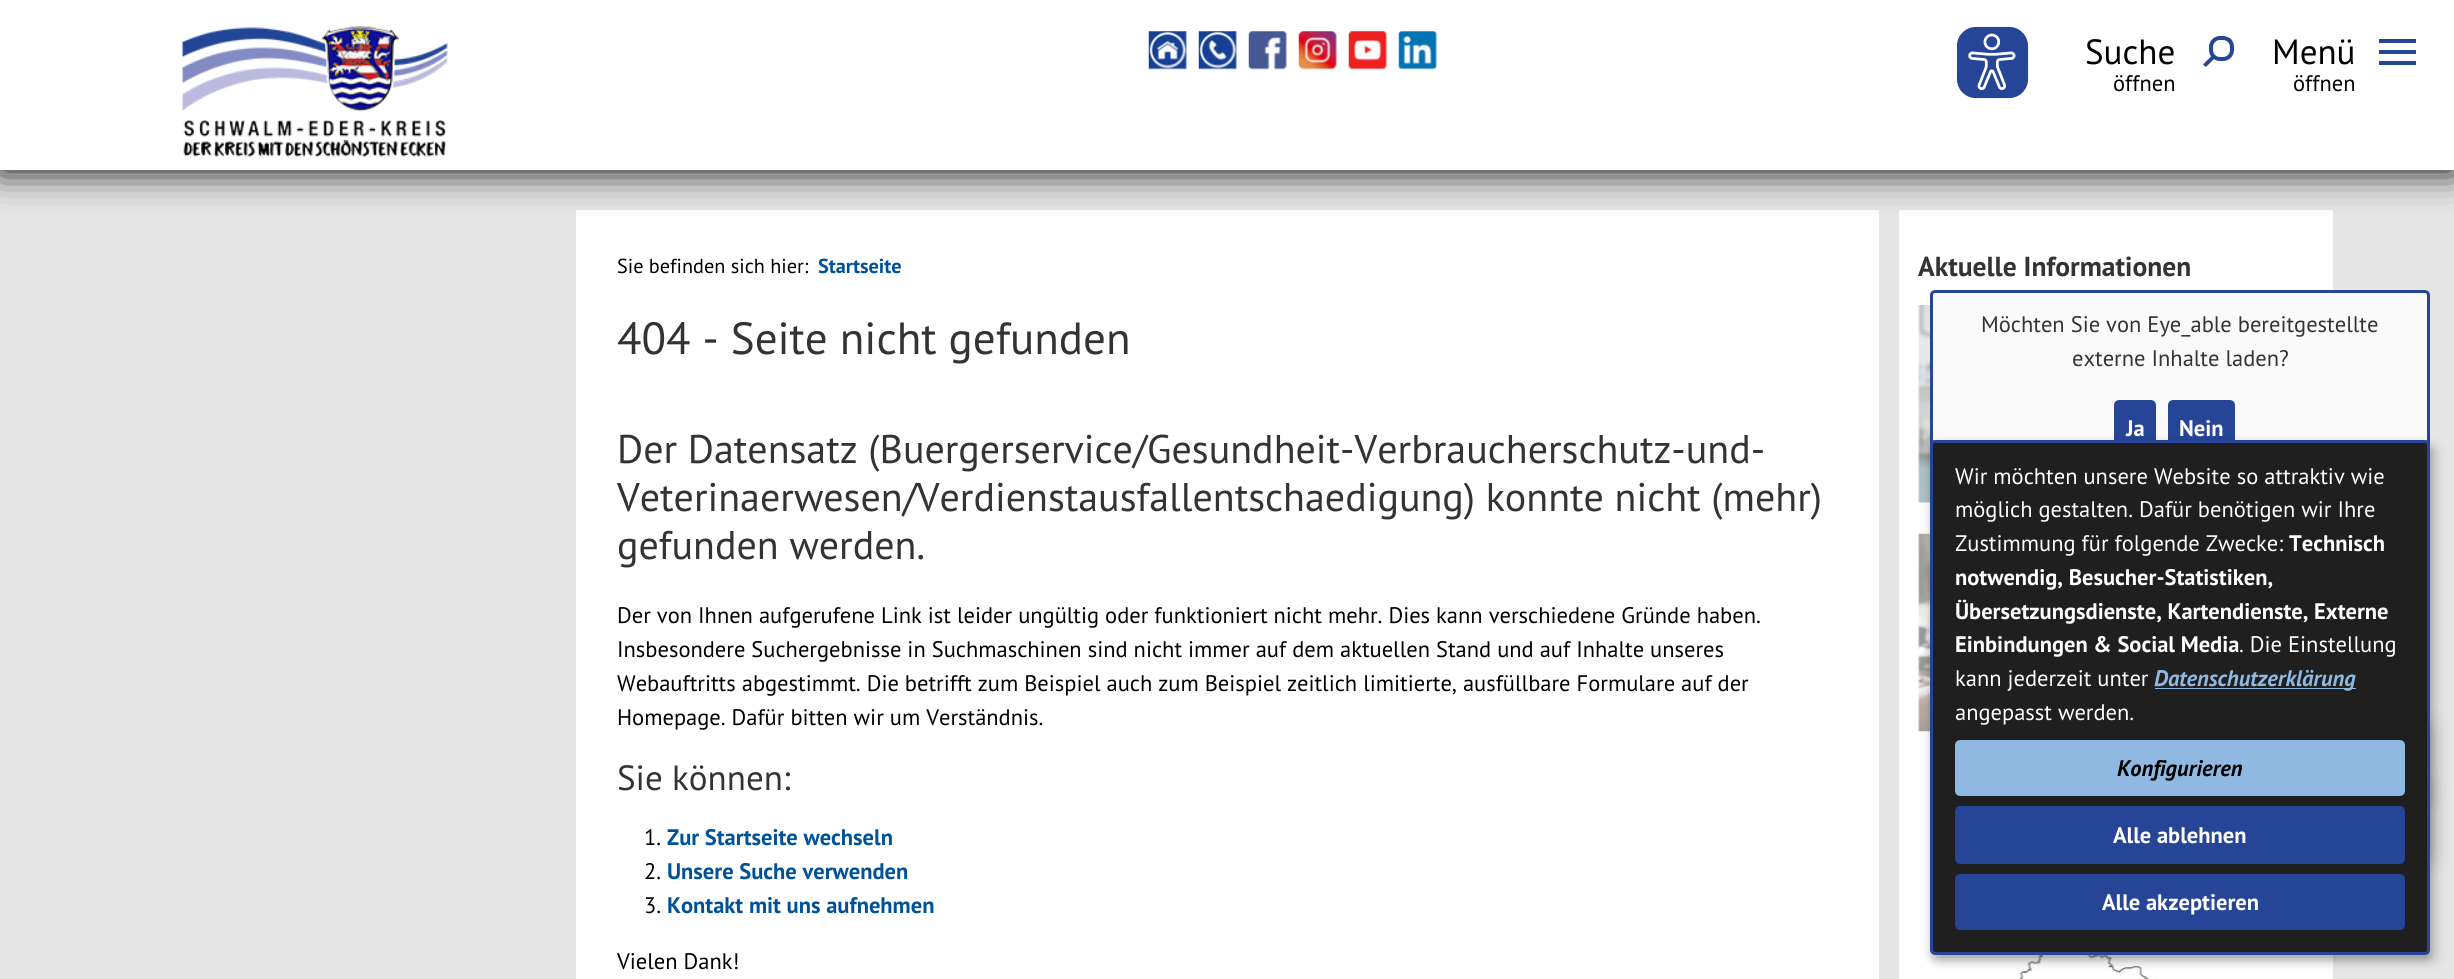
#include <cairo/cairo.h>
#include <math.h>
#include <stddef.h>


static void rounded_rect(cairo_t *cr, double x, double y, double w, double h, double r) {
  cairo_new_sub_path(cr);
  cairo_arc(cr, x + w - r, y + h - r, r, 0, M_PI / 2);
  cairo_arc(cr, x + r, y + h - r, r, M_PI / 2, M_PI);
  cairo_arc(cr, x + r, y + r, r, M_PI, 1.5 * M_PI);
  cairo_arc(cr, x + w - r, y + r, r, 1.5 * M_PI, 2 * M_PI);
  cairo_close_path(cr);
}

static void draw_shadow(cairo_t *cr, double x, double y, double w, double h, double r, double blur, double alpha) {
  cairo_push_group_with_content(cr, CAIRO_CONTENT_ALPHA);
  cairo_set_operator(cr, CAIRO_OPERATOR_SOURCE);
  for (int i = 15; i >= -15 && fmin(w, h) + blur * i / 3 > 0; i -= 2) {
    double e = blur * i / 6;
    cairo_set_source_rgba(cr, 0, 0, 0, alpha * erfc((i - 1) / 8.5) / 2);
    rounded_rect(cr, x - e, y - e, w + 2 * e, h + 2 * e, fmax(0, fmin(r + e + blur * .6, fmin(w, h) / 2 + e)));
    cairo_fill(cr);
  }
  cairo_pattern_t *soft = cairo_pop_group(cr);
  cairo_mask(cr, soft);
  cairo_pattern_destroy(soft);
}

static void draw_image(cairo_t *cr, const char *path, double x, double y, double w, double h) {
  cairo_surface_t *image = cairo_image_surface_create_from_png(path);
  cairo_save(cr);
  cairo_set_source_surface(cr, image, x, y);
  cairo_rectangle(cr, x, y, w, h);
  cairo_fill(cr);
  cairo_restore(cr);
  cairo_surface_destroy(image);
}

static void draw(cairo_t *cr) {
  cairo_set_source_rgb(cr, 230 / 255.0, 230 / 255.0, 230 / 255.0);
  cairo_paint(cr);
  cairo_set_source_rgb(cr, 1, 1, 1);
  cairo_rectangle(cr, 576, 210, 1303, 769);
  cairo_fill(cr);
  cairo_rectangle(cr, 1899, 210, 434, 769);
  cairo_fill(cr);
  cairo_set_source_rgb(cr, 0, 0, 0);
  draw_shadow(cr, 0, 0, 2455, 170, 0, 19, 1);
  cairo_set_source_rgb(cr, 1, 1, 1);
  cairo_rectangle(cr, 0, 0, 2454, 170);
  cairo_fill(cr);
  draw_image(cr, "images/1.png", 1956, 26, 73, 73);
  cairo_set_source_rgb(cr, 38 / 255.0, 69 / 255.0, 151 / 255.0);
  cairo_new_path(cr);
  cairo_move_to(cr, 2203, 64.5);
  cairo_line_to(cr, 2229.5, 38);
  cairo_line_to(cr, 2232.5, 40.5);
  cairo_line_to(cr, 2206, 67);
  cairo_close_path(cr);
  cairo_fill(cr);
  cairo_set_source_rgb(cr, 1, 1, 1);
  rounded_rect(cr, 2211, 38, 21, 21, 9);
  cairo_fill_preserve(cr);
  cairo_set_source_rgb(cr, 38 / 255.0, 69 / 255.0, 151 / 255.0);
  cairo_set_line_width(cr, 4);
  cairo_stroke(cr);
  cairo_rectangle(cr, 2379, 50, 37, 4);
  cairo_fill(cr);
  cairo_rectangle(cr, 2379, 39, 37, 4);
  cairo_fill(cr);
  cairo_rectangle(cr, 2379, 61, 37, 4);
  cairo_fill(cr);
  draw_image(cr, "images/2.png", 182, 26, 266, 131);
  draw_image(cr, "images/3.png", 1148, 31, 39, 39);
  draw_image(cr, "images/4.png", 1198, 31, 39, 39);
  draw_image(cr, "images/5.png", 1248, 31, 39, 39);
  draw_image(cr, "images/6.png", 1298, 31, 39, 39);
  draw_image(cr, "images/7.png", 1348, 31, 39, 39);
  draw_image(cr, "images/8.png", 1398, 31, 39, 39);
  draw_image(cr, "images/9.png", 1918, 305, 12, 198);
  draw_image(cr, "images/10.png", 1918, 533, 12, 199);
  draw_image(cr, "images/11.png", 2019, 955, 138, 24);
  cairo_set_source_rgb(cr, 250 / 255.0, 250 / 255.0, 250 / 255.0);
  rounded_rect(cr, 1931.5, 291.5, 497, 181, 3.5);
  cairo_fill_preserve(cr);
  cairo_set_source_rgb(cr, 38 / 255.0, 69 / 255.0, 151 / 255.0);
  cairo_set_line_width(cr, 3);
  cairo_stroke(cr);
  rounded_rect(cr, 2115.5, 401.5, 39, 53, 3.5);
  cairo_fill_preserve(cr);
  cairo_stroke(cr);
  rounded_rect(cr, 2169.5, 401.5, 64, 53, 3.5);
  cairo_fill_preserve(cr);
  cairo_stroke(cr);
  cairo_set_source_rgb(cr, 0, 0, 0);
  draw_shadow(cr, 1936, 446, 500, 515, 5, 6, 0.19);
  draw_shadow(cr, 1930, 445, 500, 515, 5, 4, 0.2);
  draw_shadow(cr, 2365, 730, 60, 60, 0, 12.5, 0.35);
  draw_shadow(cr, 2365, 795, 60, 60, 0, 12.5, 0.35);
  cairo_set_source_rgb(cr, 31 / 255.0, 31 / 255.0, 31 / 255.0);
  rounded_rect(cr, 1931.5, 441.5, 497, 512, 3.5);
  cairo_fill_preserve(cr);
  cairo_set_source_rgb(cr, 38 / 255.0, 69 / 255.0, 151 / 255.0);
  cairo_stroke(cr);
  cairo_set_source_rgb(cr, 143 / 255.0, 185 / 255.0, 225 / 255.0);
  cairo_rectangle(cr, 2155, 688, 201, 1);
  cairo_fill(cr);
  rounded_rect(cr, 1956.5, 741.5, 447, 53, 3.5);
  cairo_fill_preserve(cr);
  cairo_stroke(cr);
  cairo_set_source_rgb(cr, 38 / 255.0, 69 / 255.0, 151 / 255.0);
  rounded_rect(cr, 1956.5, 807.5, 447, 55, 3.5);
  cairo_fill_preserve(cr);
  cairo_stroke(cr);
  rounded_rect(cr, 1956.5, 875.5, 447, 53, 3.5);
  cairo_fill_preserve(cr);
  cairo_stroke(cr);
  cairo_select_font_face(cr, "PT Sans", CAIRO_FONT_SLANT_NORMAL, CAIRO_FONT_WEIGHT_NORMAL);
  cairo_set_font_size(cr, 35);
  cairo_set_source_rgb(cr, 0, 0, 0);
  cairo_move_to(cr, 2085, 64);
  cairo_show_text(cr, "Suche");
  cairo_set_font_size(cr, 22.5);
  cairo_move_to(cr, 2113, 91);
  cairo_show_text(cr, "öffnen");
  cairo_set_font_size(cr, 35);
  cairo_move_to(cr, 2272, 64);
  cairo_show_text(cr, "Menü");
  cairo_set_font_size(cr, 22.5);
  cairo_move_to(cr, 2293, 91);
  cairo_show_text(cr, "öffnen");
  cairo_set_font_size(cr, 20.25);
  cairo_move_to(cr, 617, 273);
  cairo_show_text(cr, "Sie befinden sich hier:");
  cairo_select_font_face(cr, "PT Sans", CAIRO_FONT_SLANT_NORMAL, CAIRO_FONT_WEIGHT_BOLD);
  cairo_set_source_rgb(cr, 0, 82 / 255.0, 152 / 255.0);
  cairo_move_to(cr, 818, 273);
  cairo_show_text(cr, "Startseite");
  cairo_select_font_face(cr, "PT Sans", CAIRO_FONT_SLANT_NORMAL, CAIRO_FONT_WEIGHT_NORMAL);
  cairo_set_font_size(cr, 45);
  cairo_set_source_rgb(cr, 51 / 255.0, 51 / 255.0, 51 / 255.0);
  cairo_move_to(cr, 617, 354);
  cairo_show_text(cr, "404 - Seite nicht gefunden");
  cairo_set_font_size(cr, 40);
  cairo_move_to(cr, 617, 463);
  cairo_show_text(cr, "Der Datensatz (Buergerservice/Gesundheit-Verbraucherschutz-und-");
  cairo_move_to(cr, 617, 511);
  cairo_show_text(cr, "Veterinaerwesen/Verdienstausfallentschaedigung) konnte nicht (mehr)");
  cairo_move_to(cr, 617, 559);
  cairo_show_text(cr, "gefunden werden.");
  cairo_set_font_size(cr, 22.5);
  cairo_set_source_rgb(cr, 0, 0, 0);
  cairo_move_to(cr, 617, 623);
  cairo_show_text(cr, "Der von Ihnen aufgerufene Link ist leider ungültig oder funktioniert nicht mehr. Dies kann verschiedene Gründe haben.");
  cairo_move_to(cr, 617, 657);
  cairo_show_text(cr, "Insbesondere Suchergebnisse in Suchmaschinen sind nicht immer auf dem aktuellen Stand und auf Inhalte unseres");
  cairo_move_to(cr, 617, 691);
  cairo_show_text(cr, "Webauftritts abgestimmt. Die betrifft zum Beispiel auch zum Beispiel zeitlich limitierte, ausfüllbare Formulare auf der");
  cairo_move_to(cr, 617, 725);
  cairo_show_text(cr, "Homepage. Dafür bitten wir um Verständnis.");
  cairo_set_font_size(cr, 35);
  cairo_set_source_rgb(cr, 51 / 255.0, 51 / 255.0, 51 / 255.0);
  cairo_move_to(cr, 617, 790);
  cairo_show_text(cr, "Sie können:");
  cairo_set_font_size(cr, 22.5);
  cairo_set_source_rgb(cr, 0, 0, 0);
  cairo_move_to(cr, 644, 845);
  cairo_show_text(cr, "1.");
  cairo_select_font_face(cr, "PT Sans", CAIRO_FONT_SLANT_NORMAL, CAIRO_FONT_WEIGHT_BOLD);
  cairo_set_source_rgb(cr, 0, 82 / 255.0, 152 / 255.0);
  cairo_move_to(cr, 667, 845);
  cairo_show_text(cr, "Zur Startseite wechseln");
  cairo_select_font_face(cr, "PT Sans", CAIRO_FONT_SLANT_NORMAL, CAIRO_FONT_WEIGHT_NORMAL);
  cairo_set_source_rgb(cr, 0, 0, 0);
  cairo_move_to(cr, 644, 879);
  cairo_show_text(cr, "2.");
  cairo_select_font_face(cr, "PT Sans", CAIRO_FONT_SLANT_NORMAL, CAIRO_FONT_WEIGHT_BOLD);
  cairo_set_source_rgb(cr, 0, 82 / 255.0, 152 / 255.0);
  cairo_move_to(cr, 667, 879);
  cairo_show_text(cr, "Unsere Suche verwenden");
  cairo_select_font_face(cr, "PT Sans", CAIRO_FONT_SLANT_NORMAL, CAIRO_FONT_WEIGHT_NORMAL);
  cairo_set_source_rgb(cr, 0, 0, 0);
  cairo_move_to(cr, 644, 913);
  cairo_show_text(cr, "3.");
  cairo_select_font_face(cr, "PT Sans", CAIRO_FONT_SLANT_NORMAL, CAIRO_FONT_WEIGHT_BOLD);
  cairo_set_source_rgb(cr, 0, 82 / 255.0, 152 / 255.0);
  cairo_move_to(cr, 667, 913);
  cairo_show_text(cr, "Kontakt mit uns aufnehmen");
  cairo_select_font_face(cr, "PT Sans", CAIRO_FONT_SLANT_NORMAL, CAIRO_FONT_WEIGHT_NORMAL);
  cairo_set_source_rgb(cr, 0, 0, 0);
  cairo_move_to(cr, 617, 969);
  cairo_show_text(cr, "Vielen Dank!");
  cairo_select_font_face(cr, "PT Sans", CAIRO_FONT_SLANT_NORMAL, CAIRO_FONT_WEIGHT_BOLD);
  cairo_set_font_size(cr, 27.5);
  cairo_set_source_rgb(cr, 51 / 255.0, 51 / 255.0, 51 / 255.0);
  cairo_move_to(cr, 1918, 276);
  cairo_show_text(cr, "Aktuelle Informationen");
  cairo_select_font_face(cr, "PT Sans", CAIRO_FONT_SLANT_NORMAL, CAIRO_FONT_WEIGHT_NORMAL);
  cairo_set_font_size(cr, 22.5);
  cairo_move_to(cr, 1981, 332);
  cairo_show_text(cr, "Möchten Sie von Eye_able bereitgestellte");
  cairo_move_to(cr, 2072, 366);
  cairo_show_text(cr, "externe Inhalte laden?");
  cairo_select_font_face(cr, "PT Sans", CAIRO_FONT_SLANT_NORMAL, CAIRO_FONT_WEIGHT_BOLD);
  cairo_set_source_rgb(cr, 1, 1, 1);
  cairo_move_to(cr, 2126, 436);
  cairo_show_text(cr, "Ja");
  cairo_move_to(cr, 2179, 436);
  cairo_show_text(cr, "Nein");
  cairo_select_font_face(cr, "PT Sans", CAIRO_FONT_SLANT_NORMAL, CAIRO_FONT_WEIGHT_NORMAL);
  cairo_move_to(cr, 1955, 484);
  cairo_show_text(cr, "Wir möchten unsere Website so attraktiv wie");
  cairo_move_to(cr, 1955, 517);
  cairo_show_text(cr, "möglich gestalten. Dafür benötigen wir Ihre");
  cairo_move_to(cr, 1955, 551);
  cairo_show_text(cr, "Zustimmung für folgende Zwecke:");
  cairo_select_font_face(cr, "PT Sans", CAIRO_FONT_SLANT_NORMAL, CAIRO_FONT_WEIGHT_BOLD);
  cairo_move_to(cr, 2289, 551);
  cairo_show_text(cr, "Technisch");
  cairo_move_to(cr, 1955, 585);
  cairo_show_text(cr, "notwendig, Besucher-Statistiken,");
  cairo_move_to(cr, 1955, 619);
  cairo_show_text(cr, "Übersetzungsdienste, Kartendienste, Externe");
  cairo_move_to(cr, 1955, 652);
  cairo_show_text(cr, "Einbindungen & Social Media");
  cairo_select_font_face(cr, "PT Sans", CAIRO_FONT_SLANT_NORMAL, CAIRO_FONT_WEIGHT_NORMAL);
  cairo_move_to(cr, 2239, 652);
  cairo_show_text(cr, ". Die Einstellung");
  cairo_move_to(cr, 1955, 686);
  cairo_show_text(cr, "kann jederzeit unter");
  cairo_select_font_face(cr, "PT Sans", CAIRO_FONT_SLANT_ITALIC, CAIRO_FONT_WEIGHT_BOLD);
  cairo_set_source_rgb(cr, 143 / 255.0, 185 / 255.0, 225 / 255.0);
  cairo_move_to(cr, 2154, 686);
  cairo_show_text(cr, "Datenschutzerklärung");
  cairo_select_font_face(cr, "PT Sans", CAIRO_FONT_SLANT_NORMAL, CAIRO_FONT_WEIGHT_NORMAL);
  cairo_set_source_rgb(cr, 1, 1, 1);
  cairo_move_to(cr, 1955, 720);
  cairo_show_text(cr, "angepasst werden.");
  cairo_select_font_face(cr, "PT Sans", CAIRO_FONT_SLANT_ITALIC, CAIRO_FONT_WEIGHT_BOLD);
  cairo_set_source_rgb(cr, 0, 0, 0);
  cairo_move_to(cr, 2117, 776);
  cairo_show_text(cr, "Konfigurieren");
  cairo_select_font_face(cr, "PT Sans", CAIRO_FONT_SLANT_NORMAL, CAIRO_FONT_WEIGHT_BOLD);
  cairo_set_source_rgb(cr, 1, 1, 1);
  cairo_move_to(cr, 2113, 843);
  cairo_show_text(cr, "Alle ablehnen");
  cairo_move_to(cr, 2102, 910);
  cairo_show_text(cr, "Alle akzeptieren");
}

int main(void) {
  cairo_surface_t *surface = cairo_image_surface_create(CAIRO_FORMAT_RGB24, 2454, 979);
  cairo_t *cr = cairo_create(surface);
  cairo_font_options_t *options = cairo_font_options_create();
  cairo_font_options_set_hint_metrics(options, CAIRO_HINT_METRICS_OFF);
  cairo_font_options_set_hint_style(options, CAIRO_HINT_STYLE_NONE);
  cairo_set_font_options(cr, options);
  cairo_set_miter_limit(cr, 4);
  draw(cr);
  cairo_surface_write_to_png(surface, "out.png");
  cairo_font_options_destroy(options);
  cairo_destroy(cr);
  cairo_surface_destroy(surface);
  return 0;
}
